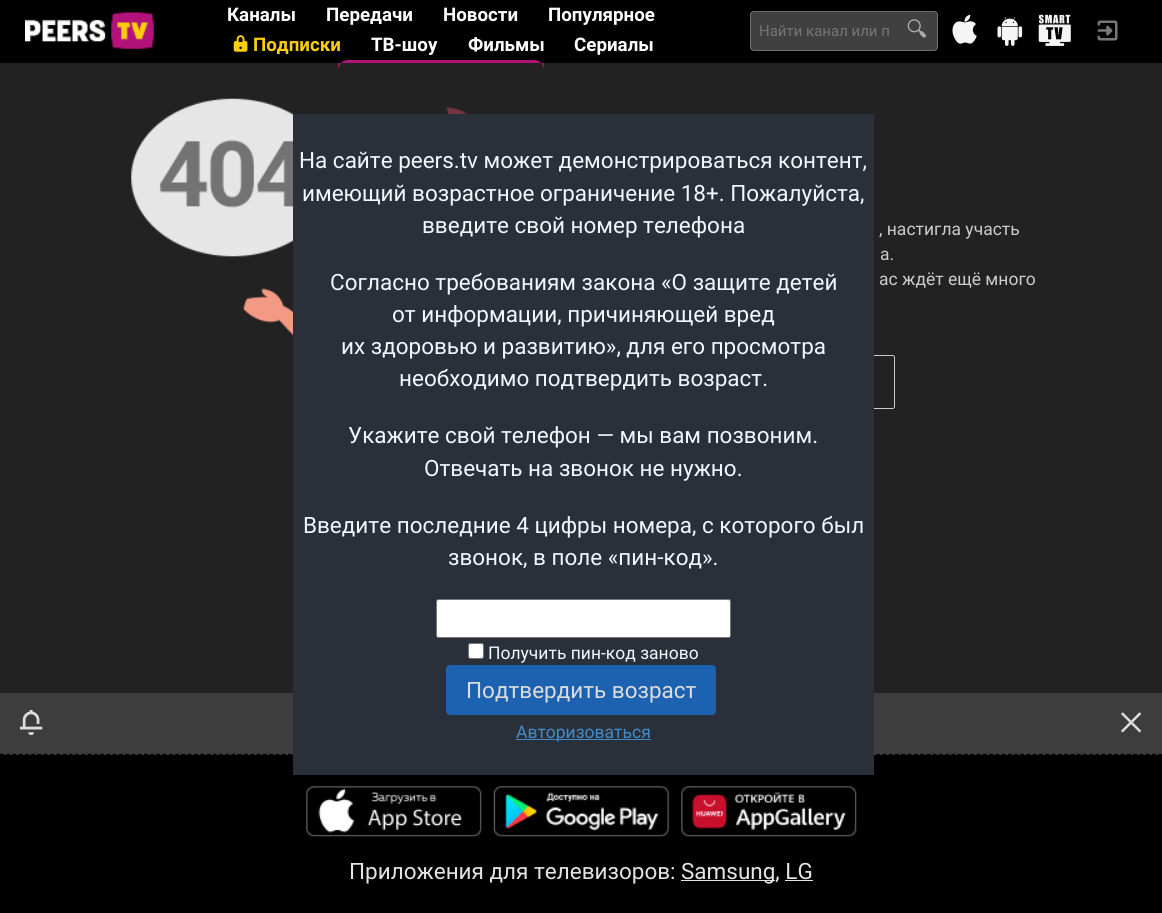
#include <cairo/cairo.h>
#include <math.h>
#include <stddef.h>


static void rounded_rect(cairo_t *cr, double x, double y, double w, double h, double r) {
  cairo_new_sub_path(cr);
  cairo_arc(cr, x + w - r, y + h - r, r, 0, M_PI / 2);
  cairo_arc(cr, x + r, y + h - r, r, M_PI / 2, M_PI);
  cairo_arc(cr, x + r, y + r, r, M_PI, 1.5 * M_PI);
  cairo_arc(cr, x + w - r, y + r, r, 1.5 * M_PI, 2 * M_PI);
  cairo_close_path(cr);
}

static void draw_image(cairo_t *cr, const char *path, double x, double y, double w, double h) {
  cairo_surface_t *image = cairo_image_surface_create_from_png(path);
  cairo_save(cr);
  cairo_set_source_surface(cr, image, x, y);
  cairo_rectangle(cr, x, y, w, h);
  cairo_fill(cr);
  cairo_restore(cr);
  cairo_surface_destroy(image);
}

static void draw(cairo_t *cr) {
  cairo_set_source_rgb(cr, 34 / 255.0, 34 / 255.0, 34 / 255.0);
  cairo_paint(cr);
  cairo_set_source_rgb(cr, 0, 0, 0);
  cairo_rectangle(cr, 0, 0, 1162, 63);
  cairo_fill(cr);
  draw_image(cr, "images/1.png", 25, 12, 129, 37);
  draw_image(cr, "images/2.png", 233, 35, 15, 17);
  cairo_set_source_rgb(cr, 179 / 255.0, 18 / 255.0, 121 / 255.0);
  cairo_new_path(cr);
  cairo_move_to(cr, 348, 60);
  cairo_line_to(cr, 534, 60);
  cairo_curve_to(cr, 539.5, 60, 544, 64.5, 544, 70);
  cairo_line_to(cr, 544, 63);
  cairo_line_to(cr, 338, 63);
  cairo_line_to(cr, 338, 70);
  cairo_curve_to(cr, 338, 64.5, 342.5, 60, 348, 60);
  cairo_close_path(cr);
  cairo_fill(cr);
  cairo_set_source_rgb(cr, 64 / 255.0, 64 / 255.0, 64 / 255.0);
  rounded_rect(cr, 750, 11, 188, 40, 4);
  cairo_fill(cr);
  rounded_rect(cr, 750.5, 11.5, 187, 39, 3.5);
  cairo_set_source_rgba(cr, 1, 1, 1, 0.25);
  cairo_set_line_width(cr, 1);
  cairo_stroke(cr);
  draw_image(cr, "images/3.png", 907, 19, 20, 19);
  draw_image(cr, "images/4.png", 952, 14, 25, 30);
  draw_image(cr, "images/5.png", 997, 17, 26, 29);
  draw_image(cr, "images/6.png", 1038, 14, 33, 32);
  draw_image(cr, "images/7.png", 1097, 20, 21, 21);
  draw_image(cr, "images/8.png", 131, 98, 337, 238);
  rounded_rect(cr, 636.5, 355.5, 258, 53, 2);
  cairo_set_source_rgb(cr, 204 / 255.0, 204 / 255.0, 204 / 255.0);
  cairo_stroke(cr);
  cairo_set_source_rgb(cr, 61 / 255.0, 61 / 255.0, 61 / 255.0);
  cairo_rectangle(cr, 0, 693, 1162, 62);
  cairo_fill(cr);
  cairo_new_path(cr);
  cairo_move_to(cr, 0, 754.5);
  cairo_line_to(cr, 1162.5, 754.5);
  cairo_set_source_rgb(cr, 0, 0, 0);
  cairo_set_line_width(cr, 1.2);
  cairo_set_dash(cr, (double[]){3.75, 2.51}, 2, 0);
  cairo_stroke(cr);
  cairo_rectangle(cr, 0, 755, 1162, 158);
  cairo_fill(cr);
  cairo_set_source_rgb(cr, 42 / 255.0, 48 / 255.0, 57 / 255.0);
  cairo_rectangle(cr, 293, 114, 581, 661);
  cairo_fill(cr);
  cairo_set_source_rgb(cr, 1, 1, 1);
  rounded_rect(cr, 436.5, 599.5, 294, 38, 2);
  cairo_fill_preserve(cr);
  cairo_set_source_rgb(cr, 118 / 255.0, 118 / 255.0, 118 / 255.0);
  cairo_set_line_width(cr, 1);
  cairo_set_dash(cr, NULL, 0, 0);
  cairo_stroke(cr);
  cairo_set_source_rgb(cr, 1, 1, 1);
  rounded_rect(cr, 468.5, 643.5, 15, 15, 2);
  cairo_fill_preserve(cr);
  cairo_set_source_rgb(cr, 118 / 255.0, 118 / 255.0, 118 / 255.0);
  cairo_stroke(cr);
  cairo_set_source_rgb(cr, 29 / 255.0, 98 / 255.0, 177 / 255.0);
  rounded_rect(cr, 446, 665, 270, 50, 4);
  cairo_fill(cr);
  cairo_set_source_rgb(cr, 66 / 255.0, 139 / 255.0, 202 / 255.0);
  cairo_rectangle(cr, 516, 739, 135, 1);
  cairo_fill(cr);
  draw_image(cr, "images/9.png", 20, 710, 23, 25);
  draw_image(cr, "images/10.png", 306, 786, 176, 51);
  draw_image(cr, "images/11.png", 493, 786, 176, 51);
  draw_image(cr, "images/12.png", 681, 786, 176, 51);
  cairo_set_source_rgb(cr, 228 / 255.0, 228 / 255.0, 228 / 255.0);
  cairo_rectangle(cr, 681, 880, 94, 1);
  cairo_fill(cr);
  cairo_rectangle(cr, 785, 880, 28, 1);
  cairo_fill(cr);
  cairo_select_font_face(cr, "Roboto", CAIRO_FONT_SLANT_NORMAL, CAIRO_FONT_WEIGHT_BOLD);
  cairo_set_font_size(cr, 18.75);
  cairo_set_source_rgb(cr, 1, 1, 1);
  cairo_move_to(cr, 227, 21);
  cairo_show_text(cr, "Каналы");
  cairo_move_to(cr, 326, 21);
  cairo_show_text(cr, "Передачи");
  cairo_move_to(cr, 443, 21);
  cairo_show_text(cr, "Новости");
  cairo_move_to(cr, 548, 21);
  cairo_show_text(cr, "Популярное");
  cairo_set_source_rgb(cr, 250 / 255.0, 205 / 255.0, 15 / 255.0);
  cairo_move_to(cr, 253, 51);
  cairo_show_text(cr, "Подписки");
  cairo_set_source_rgb(cr, 1, 1, 1);
  cairo_move_to(cr, 371, 51);
  cairo_show_text(cr, "ТВ-шоу");
  cairo_move_to(cr, 468, 51);
  cairo_show_text(cr, "Фильмы");
  cairo_move_to(cr, 574, 51);
  cairo_show_text(cr, "Сериалы");
  cairo_select_font_face(cr, "Roboto", CAIRO_FONT_SLANT_NORMAL, CAIRO_FONT_WEIGHT_NORMAL);
  cairo_set_font_size(cr, 15);
  cairo_set_source_rgb(cr, 117 / 255.0, 117 / 255.0, 117 / 255.0);
  cairo_move_to(cr, 759, 36);
  cairo_show_text(cr, "Найти канал или п");
  cairo_set_font_size(cr, 22.5);
  cairo_set_source_rgb(cr, 240 / 255.0, 248 / 255.0, 1);
  cairo_move_to(cr, 299, 168);
  cairo_show_text(cr, "На сайте peers.tv может демонстрироваться контент,");
  cairo_move_to(cr, 302, 201);
  cairo_show_text(cr, "имеющий возрастное ограничение 18+. Пожалуйста,");
  cairo_move_to(cr, 422, 233);
  cairo_show_text(cr, "введите свой номер телефона");
  cairo_move_to(cr, 330, 290);
  cairo_show_text(cr, "Согласно требованиям закона «О защите детей");
  cairo_move_to(cr, 392, 322);
  cairo_show_text(cr, "от информации, причиняющей вред");
  cairo_move_to(cr, 341, 354);
  cairo_show_text(cr, "их здоровью и развитию», для его просмотра");
  cairo_move_to(cr, 399, 386);
  cairo_show_text(cr, "необходимо подтвердить возраст.");
  cairo_move_to(cr, 348, 443);
  cairo_show_text(cr, "Укажите свой телефон — мы вам позвоним.");
  cairo_move_to(cr, 424, 476);
  cairo_show_text(cr, "Отвечать на звонок не нужно.");
  cairo_move_to(cr, 303, 533);
  cairo_show_text(cr, "Введите последние 4 цифры номера, с которого был");
  cairo_move_to(cr, 448, 565);
  cairo_show_text(cr, "звонок, в поле «пин-код».");
  cairo_set_font_size(cr, 17.5);
  cairo_move_to(cr, 488, 659);
  cairo_show_text(cr, "Получить пин-код заново");
  cairo_set_font_size(cr, 22.5);
  cairo_set_source_rgb(cr, 220 / 255.0, 220 / 255.0, 220 / 255.0);
  cairo_move_to(cr, 466, 698);
  cairo_show_text(cr, "Подтвердить возраст");
  cairo_set_font_size(cr, 17.5);
  cairo_set_source_rgb(cr, 66 / 255.0, 139 / 255.0, 202 / 255.0);
  cairo_move_to(cr, 516, 738);
  cairo_show_text(cr, "Авторизоваться");
  cairo_set_source_rgb(cr, 204 / 255.0, 204 / 255.0, 204 / 255.0);
  cairo_move_to(cr, 879, 235);
  cairo_show_text(cr, ", настигла участь");
  cairo_move_to(cr, 880, 260);
  cairo_show_text(cr, "а.");
  cairo_move_to(cr, 879, 285);
  cairo_show_text(cr, "ас ждёт ещё много");
  cairo_select_font_face(cr, "Liberation Serif", CAIRO_FONT_SLANT_NORMAL, CAIRO_FONT_WEIGHT_NORMAL);
  cairo_set_font_size(cr, 50);
  cairo_set_source_rgb(cr, 220 / 255.0, 220 / 255.0, 220 / 255.0);
  cairo_move_to(cr, 1117, 739);
  cairo_show_text(cr, "×");
  cairo_select_font_face(cr, "Roboto", CAIRO_FONT_SLANT_NORMAL, CAIRO_FONT_WEIGHT_NORMAL);
  cairo_set_font_size(cr, 22.5);
  cairo_set_source_rgb(cr, 228 / 255.0, 228 / 255.0, 228 / 255.0);
  cairo_move_to(cr, 349, 879);
  cairo_show_text(cr, "Приложения для телевизоров:");
  cairo_move_to(cr, 681, 879);
  cairo_show_text(cr, "Samsung, LG");
}

int main(void) {
  cairo_surface_t *surface = cairo_image_surface_create(CAIRO_FORMAT_RGB24, 1162, 913);
  cairo_t *cr = cairo_create(surface);
  cairo_font_options_t *options = cairo_font_options_create();
  cairo_font_options_set_hint_metrics(options, CAIRO_HINT_METRICS_OFF);
  cairo_font_options_set_hint_style(options, CAIRO_HINT_STYLE_NONE);
  cairo_set_font_options(cr, options);
  cairo_set_miter_limit(cr, 4);
  draw(cr);
  cairo_surface_write_to_png(surface, "out.png");
  cairo_font_options_destroy(options);
  cairo_destroy(cr);
  cairo_surface_destroy(surface);
  return 0;
}
